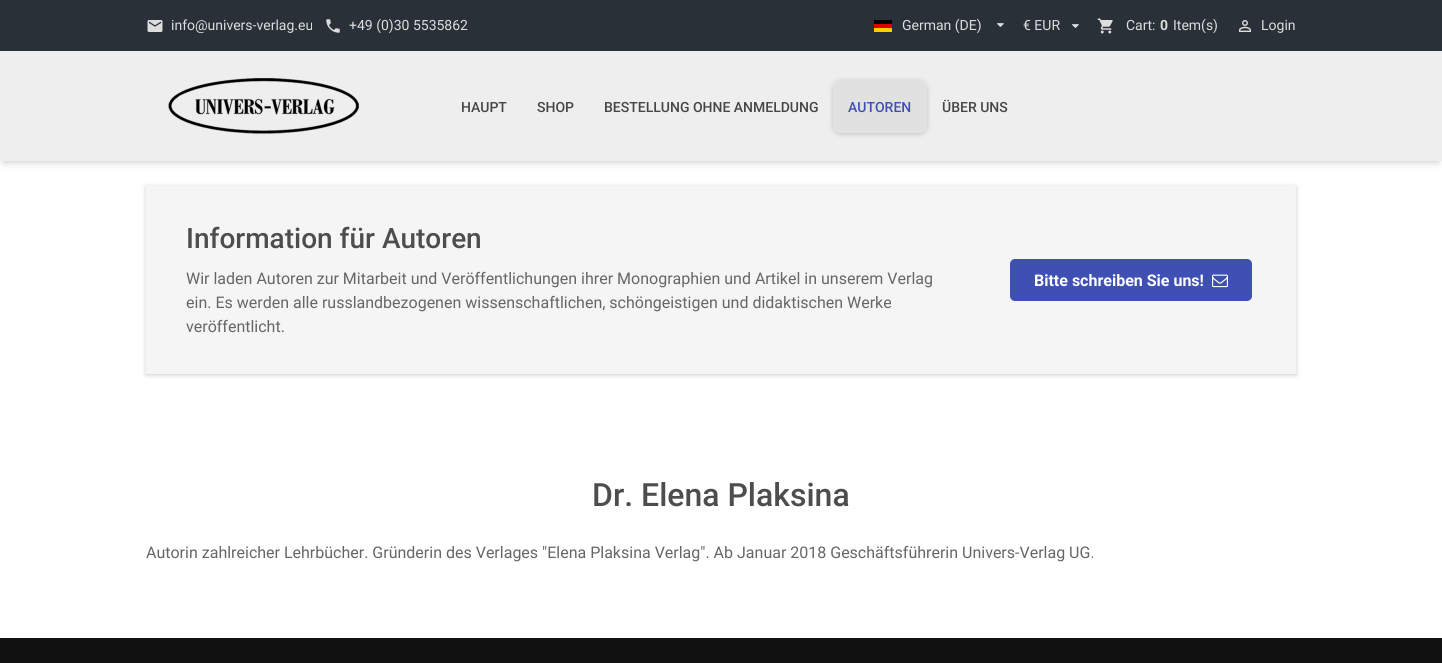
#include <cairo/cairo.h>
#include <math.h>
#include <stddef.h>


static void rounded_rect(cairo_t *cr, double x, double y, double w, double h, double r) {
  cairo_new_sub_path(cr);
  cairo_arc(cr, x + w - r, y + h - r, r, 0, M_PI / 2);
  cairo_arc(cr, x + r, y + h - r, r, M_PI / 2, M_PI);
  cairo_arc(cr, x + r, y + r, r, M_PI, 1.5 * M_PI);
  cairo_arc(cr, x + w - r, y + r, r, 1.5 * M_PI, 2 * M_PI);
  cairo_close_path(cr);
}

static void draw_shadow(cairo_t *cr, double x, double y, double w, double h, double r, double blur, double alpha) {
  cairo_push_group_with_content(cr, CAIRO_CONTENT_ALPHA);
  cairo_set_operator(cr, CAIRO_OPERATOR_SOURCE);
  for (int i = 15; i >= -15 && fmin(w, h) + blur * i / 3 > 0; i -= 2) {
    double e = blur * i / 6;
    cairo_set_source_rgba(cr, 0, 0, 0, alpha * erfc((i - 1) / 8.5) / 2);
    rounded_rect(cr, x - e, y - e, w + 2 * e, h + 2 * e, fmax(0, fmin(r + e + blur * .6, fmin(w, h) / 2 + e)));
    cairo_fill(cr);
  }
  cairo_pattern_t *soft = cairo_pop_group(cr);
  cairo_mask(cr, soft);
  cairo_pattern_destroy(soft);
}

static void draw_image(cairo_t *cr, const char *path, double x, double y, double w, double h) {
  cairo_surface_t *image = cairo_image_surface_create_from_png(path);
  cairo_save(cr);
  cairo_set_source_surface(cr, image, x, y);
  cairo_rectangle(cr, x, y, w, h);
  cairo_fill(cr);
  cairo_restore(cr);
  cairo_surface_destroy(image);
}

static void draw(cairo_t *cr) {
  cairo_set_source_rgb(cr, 1, 1, 1);
  cairo_paint(cr);
  cairo_set_source_rgb(cr, 41 / 255.0, 48 / 255.0, 56 / 255.0);
  cairo_rectangle(cr, 0, 0, 1442, 51);
  cairo_fill(cr);
  draw_image(cr, "images/1.png", 147, 20, 16, 12);
  draw_image(cr, "images/2.png", 326, 19, 14, 14);
  draw_image(cr, "images/3.png", 874, 20, 18, 12);
  draw_image(cr, "images/4.png", 997, 23, 7, 4);
  draw_image(cr, "images/4.png", 1072, 24, 7, 4);
  draw_image(cr, "images/5.png", 1097, 18, 16, 16);
  draw_image(cr, "images/6.png", 1239, 20, 12, 12);
  cairo_set_source_rgb(cr, 182 / 255.0, 182 / 255.0, 182 / 255.0);
  draw_shadow(cr, 4, 60, 1434, 102, 0, 4, 0.75);
  cairo_set_source_rgb(cr, 238 / 255.0, 238 / 255.0, 238 / 255.0);
  cairo_rectangle(cr, 0, 51, 1442, 110);
  cairo_fill(cr);
  draw_image(cr, "images/7.png", 168, 78, 191, 56);
  cairo_save(cr);
  cairo_set_fill_rule(cr, CAIRO_FILL_RULE_EVEN_ODD);
  cairo_new_path(cr);
  cairo_move_to(cr, 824, 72);
  cairo_line_to(cr, 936, 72);
  cairo_line_to(cr, 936, 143);
  cairo_line_to(cr, 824, 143);
  cairo_close_path(cr);
  cairo_move_to(cr, 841, 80);
  cairo_line_to(cr, 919, 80);
  cairo_curve_to(cr, 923.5, 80, 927, 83.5, 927, 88);
  cairo_line_to(cr, 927, 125);
  cairo_curve_to(cr, 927, 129.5, 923.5, 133, 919, 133);
  cairo_line_to(cr, 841, 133);
  cairo_curve_to(cr, 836.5, 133, 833, 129.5, 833, 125);
  cairo_line_to(cr, 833, 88);
  cairo_curve_to(cr, 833, 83.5, 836.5, 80, 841, 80);
  cairo_close_path(cr);
  cairo_clip(cr);
  cairo_set_source_rgb(cr, 0, 0, 0);
  draw_shadow(cr, 833, 81, 94, 53, 8, 2.5, 0.2);
  cairo_restore(cr);
  cairo_set_source_rgba(cr, 221 / 255.0, 221 / 255.0, 221 / 255.0, 0.8);
  rounded_rect(cr, 833, 80, 94, 53, 8);
  cairo_fill(cr);
  cairo_set_source_rgb(cr, 0, 0, 0);
  draw_shadow(cr, 146, 187, 1150, 188, 0, 2.5, 0.2);
  cairo_set_source_rgb(cr, 245 / 255.0, 245 / 255.0, 245 / 255.0);
  cairo_rectangle(cr, 146, 186, 1150, 188);
  cairo_fill(cr);
  cairo_set_source_rgb(cr, 62 / 255.0, 80 / 255.0, 180 / 255.0);
  rounded_rect(cr, 1010, 259, 242, 42, 5);
  cairo_fill(cr);
  draw_image(cr, "images/8.png", 1212, 274, 16, 14);
  cairo_set_source_rgb(cr, 17 / 255.0, 17 / 255.0, 17 / 255.0);
  cairo_rectangle(cr, 0, 638, 1442, 25);
  cairo_fill(cr);
  cairo_select_font_face(cr, "Roboto", CAIRO_FONT_SLANT_NORMAL, CAIRO_FONT_WEIGHT_NORMAL);
  cairo_set_font_size(cr, 14);
  cairo_set_source_rgb(cr, 221 / 255.0, 221 / 255.0, 221 / 255.0);
  cairo_move_to(cr, 171, 30);
  cairo_show_text(cr, "info@univers-verlag.eu");
  cairo_move_to(cr, 349, 30);
  cairo_show_text(cr, "+49 (0)30 5535862");
  cairo_move_to(cr, 902, 30);
  cairo_show_text(cr, "German (DE)");
  cairo_move_to(cr, 1023, 30);
  cairo_show_text(cr, "€ EUR");
  cairo_move_to(cr, 1126, 30);
  cairo_show_text(cr, "Cart:");
  cairo_select_font_face(cr, "Roboto", CAIRO_FONT_SLANT_NORMAL, CAIRO_FONT_WEIGHT_BOLD);
  cairo_move_to(cr, 1160, 30);
  cairo_show_text(cr, "0");
  cairo_select_font_face(cr, "Roboto", CAIRO_FONT_SLANT_NORMAL, CAIRO_FONT_WEIGHT_NORMAL);
  cairo_move_to(cr, 1173, 30);
  cairo_show_text(cr, "Item(s)");
  cairo_move_to(cr, 1261, 30);
  cairo_show_text(cr, "Login");
  cairo_select_font_face(cr, "Roboto Medium", CAIRO_FONT_SLANT_NORMAL, CAIRO_FONT_WEIGHT_NORMAL);
  cairo_set_source_rgb(cr, 70 / 255.0, 70 / 255.0, 70 / 255.0);
  cairo_move_to(cr, 461, 112);
  cairo_show_text(cr, "HAUPT");
  cairo_move_to(cr, 537, 112);
  cairo_show_text(cr, "SHOP");
  cairo_move_to(cr, 604, 112);
  cairo_show_text(cr, "BESTELLUNG OHNE ANMELDUNG");
  cairo_set_source_rgb(cr, 62 / 255.0, 80 / 255.0, 180 / 255.0);
  cairo_move_to(cr, 848, 112);
  cairo_show_text(cr, "AUTOREN");
  cairo_set_source_rgb(cr, 70 / 255.0, 70 / 255.0, 70 / 255.0);
  cairo_move_to(cr, 942, 112);
  cairo_show_text(cr, "ÜBER UNS");
  cairo_set_font_size(cr, 28);
  cairo_set_source_rgb(cr, 77 / 255.0, 77 / 255.0, 77 / 255.0);
  cairo_move_to(cr, 186, 248);
  cairo_show_text(cr, "Information für Autoren");
  cairo_select_font_face(cr, "Roboto", CAIRO_FONT_SLANT_NORMAL, CAIRO_FONT_WEIGHT_NORMAL);
  cairo_set_font_size(cr, 16);
  cairo_set_source_rgb(cr, 102 / 255.0, 102 / 255.0, 102 / 255.0);
  cairo_move_to(cr, 186, 284);
  cairo_show_text(cr, "Wir laden Autoren zur Mitarbeit und Veröffentlichungen ihrer Monographien und Artikel in unserem Verlag");
  cairo_move_to(cr, 186, 308);
  cairo_show_text(cr, "ein. Es werden alle russlandbezogenen wissenschaftlichen, schöngeistigen und didaktischen Werke");
  cairo_move_to(cr, 186, 332);
  cairo_show_text(cr, "veröffentlicht.");
  cairo_select_font_face(cr, "Roboto", CAIRO_FONT_SLANT_NORMAL, CAIRO_FONT_WEIGHT_BOLD);
  cairo_set_source_rgb(cr, 1, 1, 1);
  cairo_move_to(cr, 1034, 286);
  cairo_show_text(cr, "Bitte schreiben Sie uns!");
  cairo_select_font_face(cr, "Roboto Medium", CAIRO_FONT_SLANT_NORMAL, CAIRO_FONT_WEIGHT_NORMAL);
  cairo_set_font_size(cr, 32);
  cairo_set_source_rgb(cr, 77 / 255.0, 77 / 255.0, 77 / 255.0);
  cairo_move_to(cr, 592, 506);
  cairo_show_text(cr, "Dr. Elena Plaksina");
  cairo_select_font_face(cr, "Roboto", CAIRO_FONT_SLANT_NORMAL, CAIRO_FONT_WEIGHT_NORMAL);
  cairo_set_font_size(cr, 16);
  cairo_set_source_rgb(cr, 102 / 255.0, 102 / 255.0, 102 / 255.0);
  cairo_move_to(cr, 146, 558);
  cairo_show_text(cr, "Autorin zahlreicher Lehrbücher. Gründerin des Verlages \"Elena Plaksina Verlag\". Ab Januar 2018 Geschäftsführerin Univers-Verlag UG.");
}

int main(void) {
  cairo_surface_t *surface = cairo_image_surface_create(CAIRO_FORMAT_RGB24, 1442, 663);
  cairo_t *cr = cairo_create(surface);
  cairo_font_options_t *options = cairo_font_options_create();
  cairo_font_options_set_hint_metrics(options, CAIRO_HINT_METRICS_OFF);
  cairo_font_options_set_hint_style(options, CAIRO_HINT_STYLE_NONE);
  cairo_set_font_options(cr, options);
  cairo_set_miter_limit(cr, 4);
  draw(cr);
  cairo_surface_write_to_png(surface, "out.png");
  cairo_font_options_destroy(options);
  cairo_destroy(cr);
  cairo_surface_destroy(surface);
  return 0;
}
